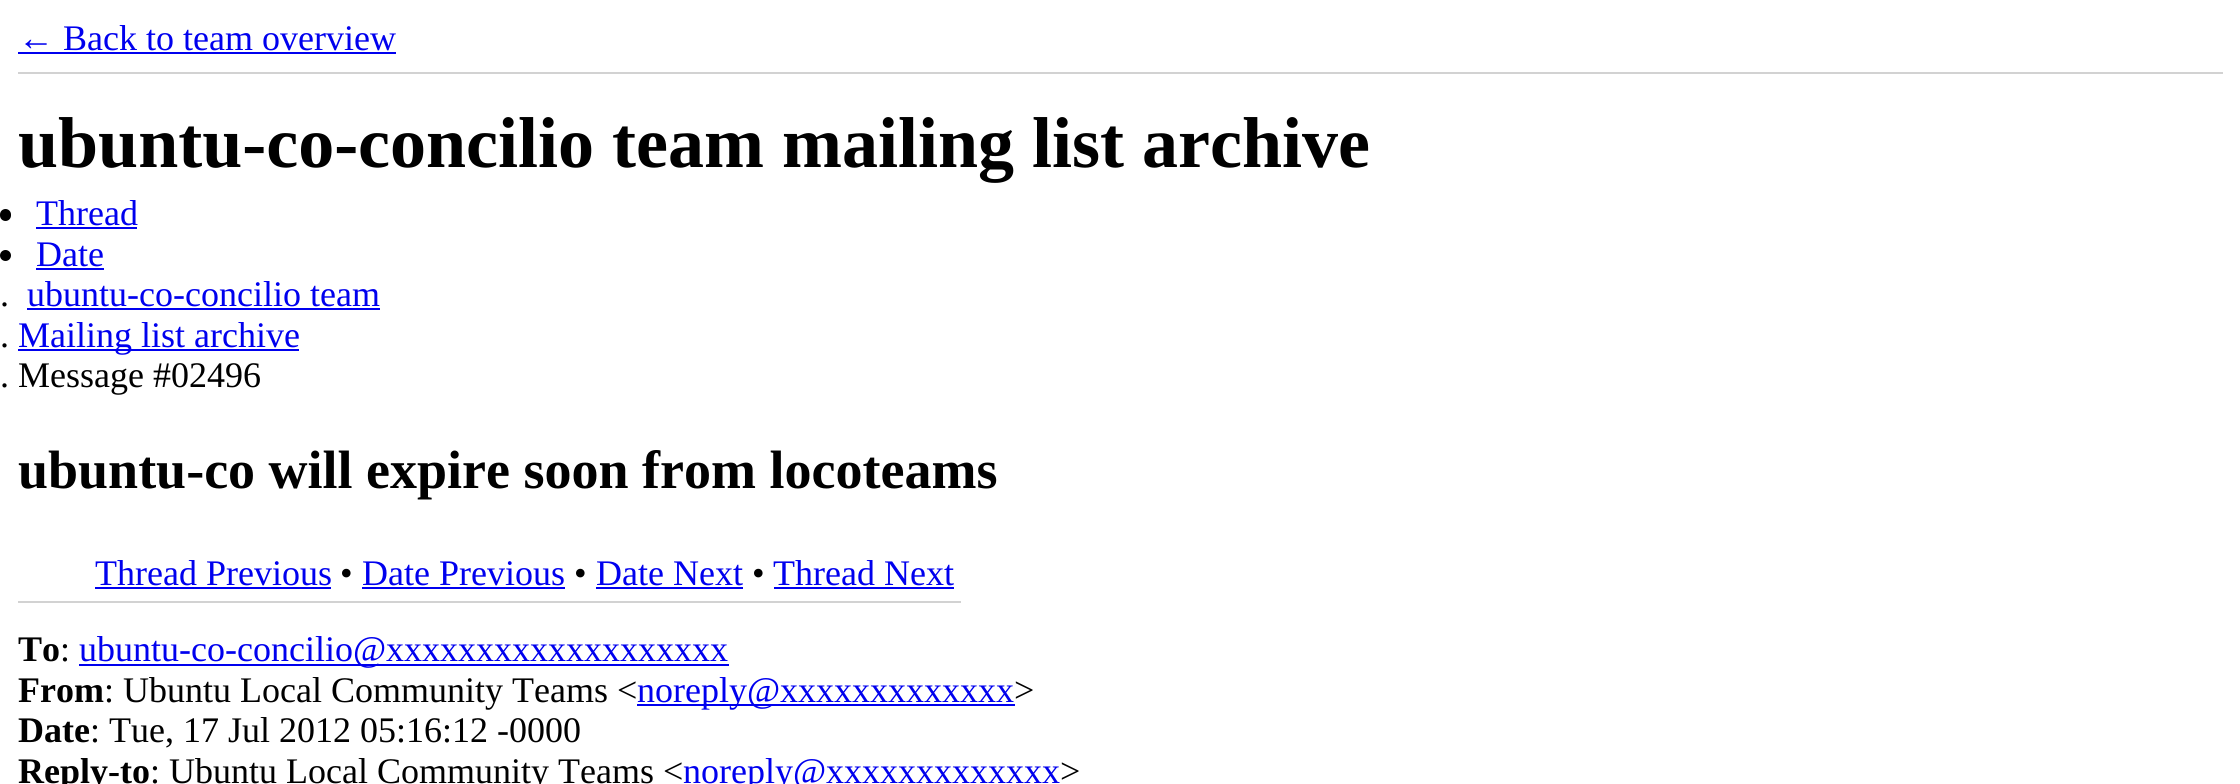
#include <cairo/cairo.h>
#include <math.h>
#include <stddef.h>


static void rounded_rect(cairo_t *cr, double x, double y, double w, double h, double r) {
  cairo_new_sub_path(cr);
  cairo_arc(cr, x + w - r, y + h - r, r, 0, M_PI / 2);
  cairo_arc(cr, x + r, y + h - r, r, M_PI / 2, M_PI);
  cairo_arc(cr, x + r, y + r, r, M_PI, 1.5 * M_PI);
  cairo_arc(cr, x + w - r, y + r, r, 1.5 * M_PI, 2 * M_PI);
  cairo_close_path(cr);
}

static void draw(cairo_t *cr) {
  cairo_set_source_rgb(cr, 1, 1, 1);
  cairo_paint(cr);
  cairo_set_source_rgb(cr, 210 / 255.0, 210 / 255.0, 210 / 255.0);
  cairo_rectangle(cr, 18, 72, 2205, 2);
  cairo_fill(cr);
  cairo_set_source_rgb(cr, 0, 0, 238 / 255.0);
  cairo_rectangle(cr, 18, 52, 378, 2);
  cairo_fill(cr);
  cairo_set_source_rgb(cr, 0, 0, 0);
  rounded_rect(cr, 0, 209, 11, 12, 5.5);
  cairo_fill(cr);
  cairo_set_source_rgb(cr, 0, 0, 238 / 255.0);
  cairo_rectangle(cr, 36, 227, 101, 2);
  cairo_fill(cr);
  cairo_set_source_rgb(cr, 0, 0, 0);
  cairo_arc(cr, 5.5, 255.5, 5.5, 0, 2 * M_PI);
  cairo_fill(cr);
  cairo_set_source_rgb(cr, 0, 0, 238 / 255.0);
  cairo_rectangle(cr, 36, 268, 68, 2);
  cairo_fill(cr);
  cairo_rectangle(cr, 27, 308, 353, 2);
  cairo_fill(cr);
  cairo_rectangle(cr, 18, 349, 281, 2);
  cairo_fill(cr);
  cairo_set_source_rgb(cr, 210 / 255.0, 210 / 255.0, 210 / 255.0);
  cairo_rectangle(cr, 18, 601, 943, 2);
  cairo_fill(cr);
  cairo_set_source_rgb(cr, 0, 0, 238 / 255.0);
  cairo_rectangle(cr, 95, 587, 236, 2);
  cairo_fill(cr);
  cairo_rectangle(cr, 362, 587, 203, 2);
  cairo_fill(cr);
  cairo_rectangle(cr, 596, 587, 147, 2);
  cairo_fill(cr);
  cairo_rectangle(cr, 774, 587, 180, 2);
  cairo_fill(cr);
  cairo_rectangle(cr, 79, 664, 650, 2);
  cairo_fill(cr);
  cairo_rectangle(cr, 637, 704, 378, 2);
  cairo_fill(cr);
  cairo_select_font_face(cr, "Liberation Serif", CAIRO_FONT_SLANT_NORMAL, CAIRO_FONT_WEIGHT_NORMAL);
  cairo_set_font_size(cr, 36);
  cairo_move_to(cr, 18, 50);
  cairo_show_text(cr, "← Back to team overview");
  cairo_select_font_face(cr, "Liberation Serif", CAIRO_FONT_SLANT_NORMAL, CAIRO_FONT_WEIGHT_BOLD);
  cairo_set_font_size(cr, 72);
  cairo_set_source_rgb(cr, 0, 0, 0);
  cairo_move_to(cr, 18, 167);
  cairo_show_text(cr, "ubuntu-co-concilio team mailing list archive");
  cairo_select_font_face(cr, "Liberation Serif", CAIRO_FONT_SLANT_NORMAL, CAIRO_FONT_WEIGHT_NORMAL);
  cairo_set_font_size(cr, 36);
  cairo_set_source_rgb(cr, 0, 0, 238 / 255.0);
  cairo_move_to(cr, 36, 225);
  cairo_show_text(cr, "Thread");
  cairo_move_to(cr, 36, 266);
  cairo_show_text(cr, "Date");
  cairo_set_source_rgb(cr, 0, 0, 0);
  cairo_move_to(cr, 0, 306);
  cairo_show_text(cr, ".");
  cairo_set_source_rgb(cr, 0, 0, 238 / 255.0);
  cairo_move_to(cr, 27, 306);
  cairo_show_text(cr, "ubuntu-co-concilio team");
  cairo_set_source_rgb(cr, 0, 0, 0);
  cairo_move_to(cr, 0, 347);
  cairo_show_text(cr, ".");
  cairo_set_source_rgb(cr, 0, 0, 238 / 255.0);
  cairo_move_to(cr, 18, 347);
  cairo_show_text(cr, "Mailing list archive");
  cairo_set_source_rgb(cr, 0, 0, 0);
  cairo_move_to(cr, 0, 387);
  cairo_show_text(cr, ". Message #02496");
  cairo_select_font_face(cr, "Liberation Serif", CAIRO_FONT_SLANT_NORMAL, CAIRO_FONT_WEIGHT_BOLD);
  cairo_set_font_size(cr, 54);
  cairo_move_to(cr, 18, 488);
  cairo_show_text(cr, "ubuntu-co will expire soon from locoteams");
  cairo_select_font_face(cr, "Liberation Serif", CAIRO_FONT_SLANT_NORMAL, CAIRO_FONT_WEIGHT_NORMAL);
  cairo_set_font_size(cr, 36);
  cairo_set_source_rgb(cr, 0, 0, 238 / 255.0);
  cairo_move_to(cr, 95, 585);
  cairo_show_text(cr, "Thread Previous");
  cairo_set_source_rgb(cr, 0, 0, 0);
  cairo_move_to(cr, 340, 585);
  cairo_show_text(cr, "•");
  cairo_set_source_rgb(cr, 0, 0, 238 / 255.0);
  cairo_move_to(cr, 362, 585);
  cairo_show_text(cr, "Date Previous");
  cairo_set_source_rgb(cr, 0, 0, 0);
  cairo_move_to(cr, 574, 585);
  cairo_show_text(cr, "•");
  cairo_set_source_rgb(cr, 0, 0, 238 / 255.0);
  cairo_move_to(cr, 596, 585);
  cairo_show_text(cr, "Date Next");
  cairo_set_source_rgb(cr, 0, 0, 0);
  cairo_move_to(cr, 752, 585);
  cairo_show_text(cr, "•");
  cairo_set_source_rgb(cr, 0, 0, 238 / 255.0);
  cairo_move_to(cr, 773, 585);
  cairo_show_text(cr, "Thread Next");
  cairo_select_font_face(cr, "Liberation Serif", CAIRO_FONT_SLANT_NORMAL, CAIRO_FONT_WEIGHT_BOLD);
  cairo_set_source_rgb(cr, 0, 0, 0);
  cairo_move_to(cr, 18, 661);
  cairo_show_text(cr, "To");
  cairo_select_font_face(cr, "Liberation Serif", CAIRO_FONT_SLANT_NORMAL, CAIRO_FONT_WEIGHT_NORMAL);
  cairo_move_to(cr, 60, 661);
  cairo_show_text(cr, ":");
  cairo_set_source_rgb(cr, 0, 0, 238 / 255.0);
  cairo_move_to(cr, 79, 661);
  cairo_show_text(cr, "ubuntu-co-concilio@xxxxxxxxxxxxxxxxxxx");
  cairo_select_font_face(cr, "Liberation Serif", CAIRO_FONT_SLANT_NORMAL, CAIRO_FONT_WEIGHT_BOLD);
  cairo_set_source_rgb(cr, 0, 0, 0);
  cairo_move_to(cr, 18, 702);
  cairo_show_text(cr, "From");
  cairo_select_font_face(cr, "Liberation Serif", CAIRO_FONT_SLANT_NORMAL, CAIRO_FONT_WEIGHT_NORMAL);
  cairo_move_to(cr, 104, 702);
  cairo_show_text(cr, ": Ubuntu Local Community Teams <");
  cairo_set_source_rgb(cr, 0, 0, 238 / 255.0);
  cairo_move_to(cr, 637, 702);
  cairo_show_text(cr, "noreply@xxxxxxxxxxxxx");
  cairo_set_source_rgb(cr, 0, 0, 0);
  cairo_move_to(cr, 1014, 702);
  cairo_show_text(cr, ">");
  cairo_select_font_face(cr, "Liberation Serif", CAIRO_FONT_SLANT_NORMAL, CAIRO_FONT_WEIGHT_BOLD);
  cairo_move_to(cr, 18, 742);
  cairo_show_text(cr, "Date");
  cairo_select_font_face(cr, "Liberation Serif", CAIRO_FONT_SLANT_NORMAL, CAIRO_FONT_WEIGHT_NORMAL);
  cairo_move_to(cr, 90, 742);
  cairo_show_text(cr, ": Tue, 17 Jul 2012 05:16:12 -0000");
  cairo_select_font_face(cr, "Liberation Serif", CAIRO_FONT_SLANT_NORMAL, CAIRO_FONT_WEIGHT_BOLD);
  cairo_move_to(cr, 18, 783);
  cairo_show_text(cr, "Reply-to");
  cairo_select_font_face(cr, "Liberation Serif", CAIRO_FONT_SLANT_NORMAL, CAIRO_FONT_WEIGHT_NORMAL);
  cairo_move_to(cr, 150, 783);
  cairo_show_text(cr, ": Ubuntu Local Community Teams <");
  cairo_set_source_rgb(cr, 0, 0, 238 / 255.0);
  cairo_move_to(cr, 683, 783);
  cairo_show_text(cr, "noreply@xxxxxxxxxxxxx");
  cairo_set_source_rgb(cr, 0, 0, 0);
  cairo_move_to(cr, 1060, 783);
  cairo_show_text(cr, ">");
}

int main(void) {
  cairo_surface_t *surface = cairo_image_surface_create(CAIRO_FORMAT_RGB24, 2240, 784);
  cairo_t *cr = cairo_create(surface);
  cairo_font_options_t *options = cairo_font_options_create();
  cairo_font_options_set_hint_metrics(options, CAIRO_HINT_METRICS_OFF);
  cairo_font_options_set_hint_style(options, CAIRO_HINT_STYLE_NONE);
  cairo_set_font_options(cr, options);
  cairo_set_miter_limit(cr, 4);
  draw(cr);
  cairo_surface_write_to_png(surface, "out.png");
  cairo_font_options_destroy(options);
  cairo_destroy(cr);
  cairo_surface_destroy(surface);
  return 0;
}
